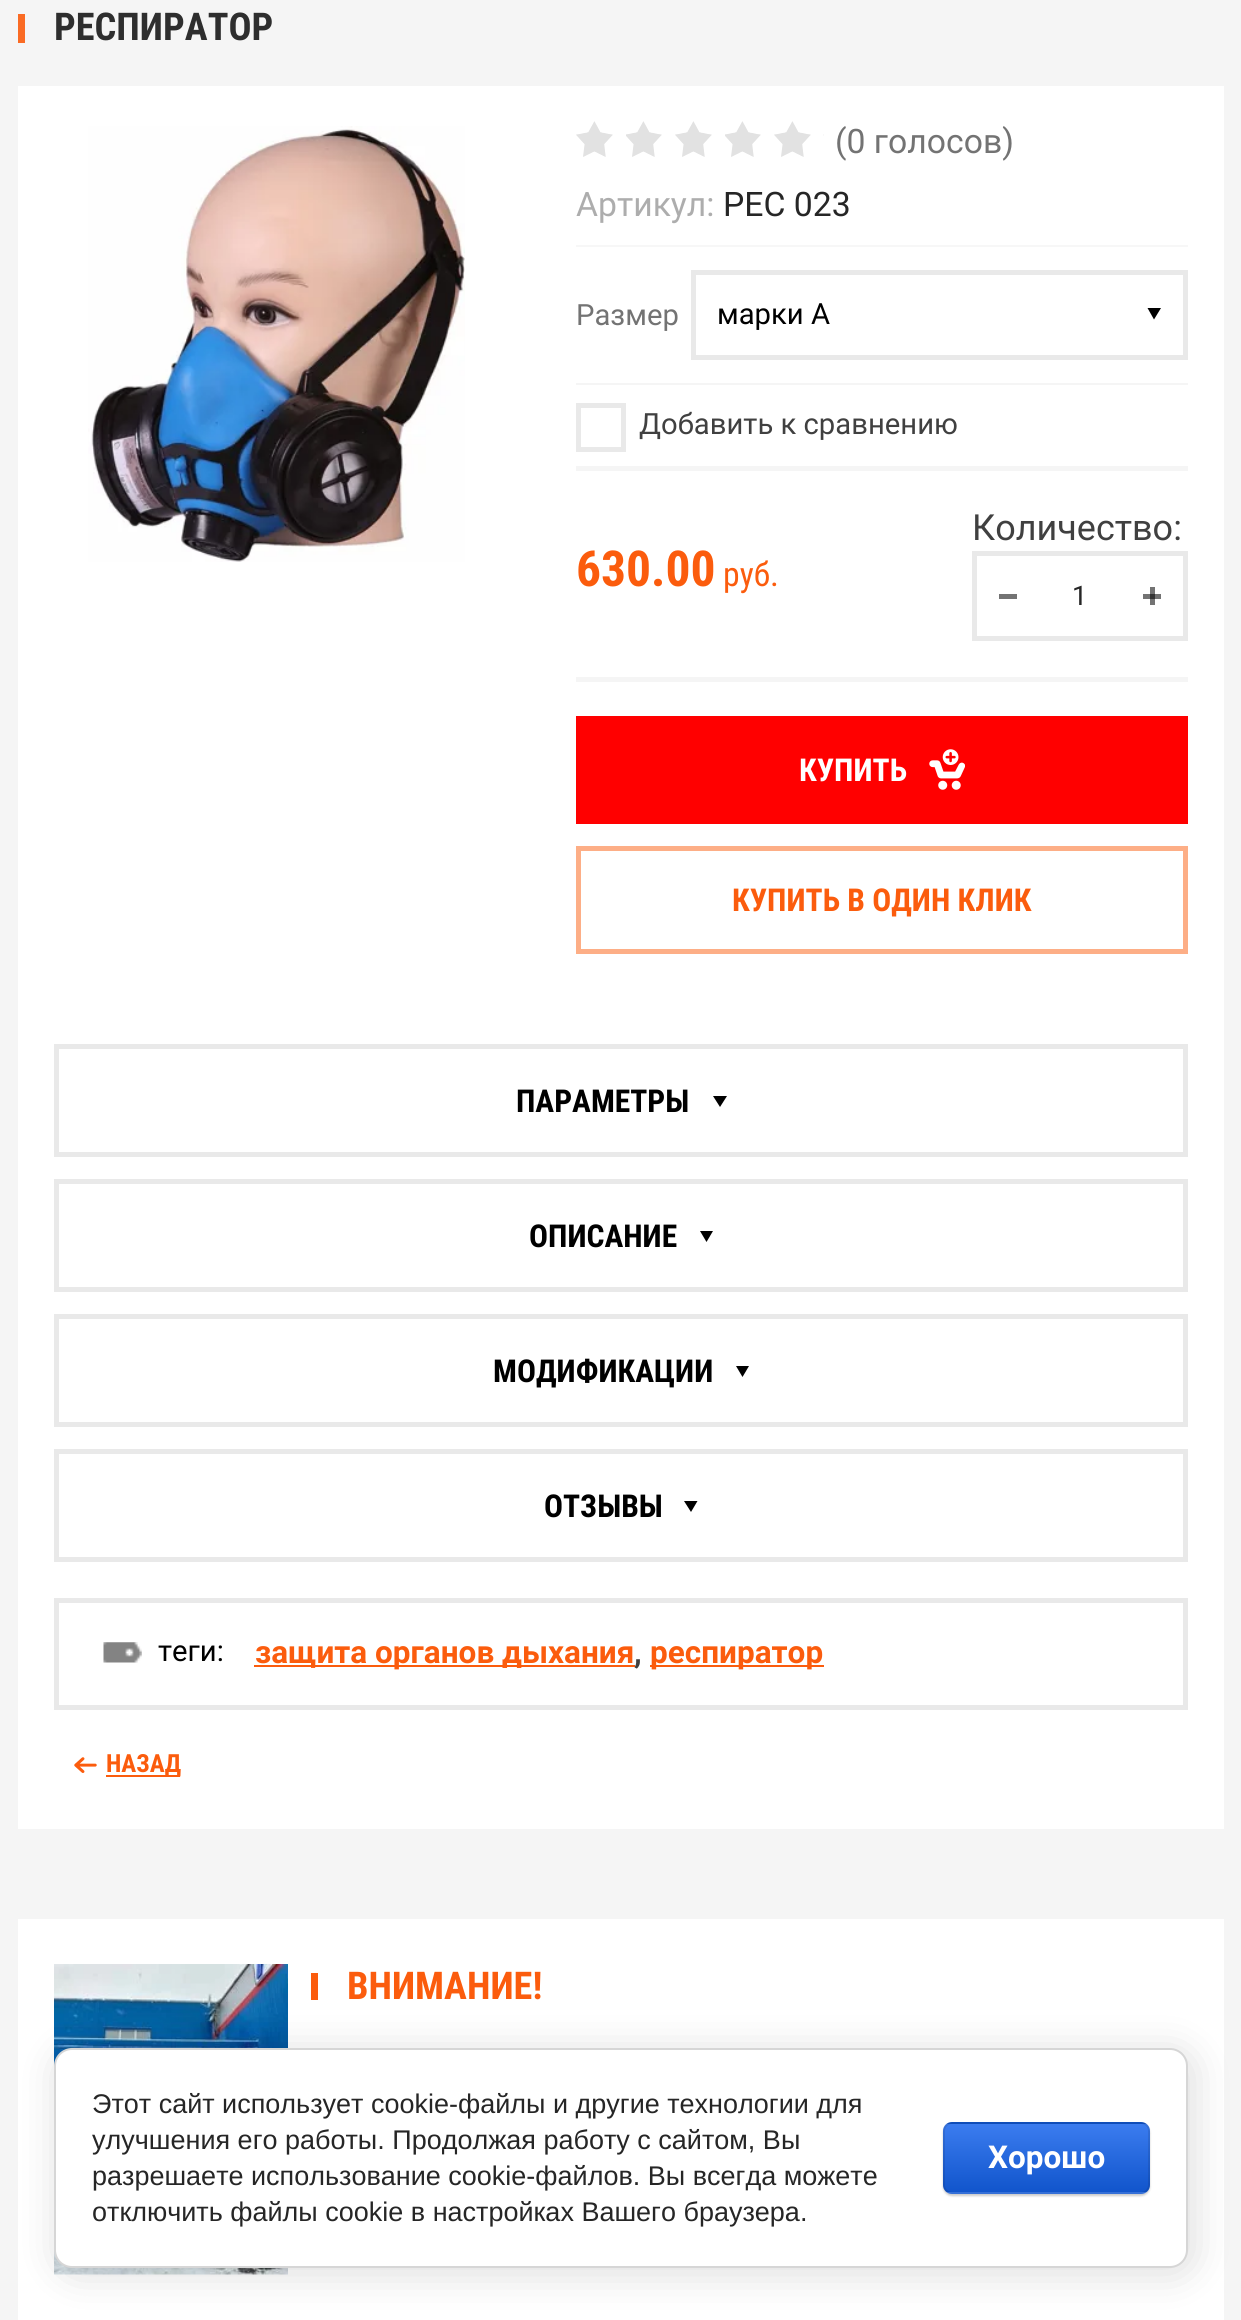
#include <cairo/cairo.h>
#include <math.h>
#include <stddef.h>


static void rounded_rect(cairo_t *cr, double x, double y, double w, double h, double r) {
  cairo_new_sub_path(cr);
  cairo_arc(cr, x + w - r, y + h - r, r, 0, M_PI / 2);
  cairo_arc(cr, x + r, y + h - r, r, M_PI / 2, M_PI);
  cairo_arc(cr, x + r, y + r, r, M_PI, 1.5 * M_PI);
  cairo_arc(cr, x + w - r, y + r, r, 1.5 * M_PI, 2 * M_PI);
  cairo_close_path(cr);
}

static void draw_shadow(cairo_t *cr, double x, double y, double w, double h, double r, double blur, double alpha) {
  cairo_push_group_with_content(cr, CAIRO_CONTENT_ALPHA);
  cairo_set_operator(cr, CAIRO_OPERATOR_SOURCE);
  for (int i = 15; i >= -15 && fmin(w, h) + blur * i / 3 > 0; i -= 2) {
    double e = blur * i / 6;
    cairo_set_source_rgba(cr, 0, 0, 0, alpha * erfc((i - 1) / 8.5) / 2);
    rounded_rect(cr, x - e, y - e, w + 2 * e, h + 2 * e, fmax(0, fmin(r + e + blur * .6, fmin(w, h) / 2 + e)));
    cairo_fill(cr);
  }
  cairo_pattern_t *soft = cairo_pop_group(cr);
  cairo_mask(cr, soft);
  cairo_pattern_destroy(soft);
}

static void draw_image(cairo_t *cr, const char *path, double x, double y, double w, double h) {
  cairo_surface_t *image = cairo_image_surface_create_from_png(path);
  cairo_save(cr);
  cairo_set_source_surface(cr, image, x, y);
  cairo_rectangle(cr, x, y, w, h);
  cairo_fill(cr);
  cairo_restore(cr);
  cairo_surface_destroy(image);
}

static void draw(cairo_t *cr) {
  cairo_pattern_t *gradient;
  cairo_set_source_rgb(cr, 245 / 255.0, 245 / 255.0, 245 / 255.0);
  cairo_paint(cr);
  cairo_set_source_rgb(cr, 250 / 255.0, 107 / 255.0, 36 / 255.0);
  cairo_rectangle(cr, 18, 14, 7, 29);
  cairo_fill(cr);
  cairo_set_source_rgb(cr, 1, 1, 1);
  cairo_rectangle(cr, 18, 86, 1206, 1743);
  cairo_fill(cr);
  cairo_set_source_rgb(cr, 115 / 255.0, 115 / 255.0, 115 / 255.0);
  cairo_rectangle(cr, 1150, 587, 5, 18);
  cairo_fill(cr);
  draw_image(cr, "images/1.png", 88, 126, 377, 436);
  draw_image(cr, "images/2.png", 576, 121, 248, 36);
  cairo_set_source_rgb(cr, 247 / 255.0, 247 / 255.0, 247 / 255.0);
  cairo_rectangle(cr, 576, 245, 612, 2);
  cairo_fill(cr);
  cairo_rectangle(cr, 693.5, 272.5, 492, 85);
  cairo_set_source_rgb(cr, 233 / 255.0, 233 / 255.0, 233 / 255.0);
  cairo_set_line_width(cr, 5);
  cairo_stroke(cr);
  cairo_set_source_rgb(cr, 0, 0, 0);
  cairo_new_path(cr);
  cairo_move_to(cr, 1147.5, 308);
  cairo_line_to(cr, 1161, 308);
  cairo_line_to(cr, 1154, 319.5);
  cairo_close_path(cr);
  cairo_fill(cr);
  cairo_set_source_rgb(cr, 245 / 255.0, 245 / 255.0, 245 / 255.0);
  cairo_rectangle(cr, 576, 383, 612, 2);
  cairo_fill(cr);
  cairo_rectangle(cr, 578.5, 405.5, 45, 44);
  cairo_set_source_rgb(cr, 233 / 255.0, 233 / 255.0, 233 / 255.0);
  cairo_stroke(cr);
  cairo_set_source_rgb(cr, 245 / 255.0, 245 / 255.0, 245 / 255.0);
  cairo_rectangle(cr, 576, 466, 612, 5);
  cairo_fill(cr);
  cairo_rectangle(cr, 576, 677, 612, 5);
  cairo_fill(cr);
  cairo_rectangle(cr, 974.5, 553.5, 211, 85);
  cairo_set_source_rgb(cr, 233 / 255.0, 233 / 255.0, 233 / 255.0);
  cairo_stroke(cr);
  cairo_set_source_rgb(cr, 115 / 255.0, 115 / 255.0, 115 / 255.0);
  cairo_rectangle(cr, 999, 594, 18, 5);
  cairo_fill(cr);
  cairo_rectangle(cr, 1143, 594, 18, 5);
  cairo_fill(cr);
  cairo_set_source_rgb(cr, 52 / 255.0, 52 / 255.0, 52 / 255.0);
  cairo_rectangle(cr, 1150, 594, 5, 5);
  cairo_fill(cr);
  cairo_set_source_rgb(cr, 1, 0, 0);
  cairo_rectangle(cr, 576, 716, 612, 108);
  cairo_fill(cr);
  draw_image(cr, "images/3.png", 929, 749, 36, 41);
  cairo_rectangle(cr, 578.5, 848.5, 607, 103);
  cairo_set_source_rgb(cr, 253 / 255.0, 174 / 255.0, 134 / 255.0);
  cairo_stroke(cr);
  cairo_rectangle(cr, 56.5, 1046.5, 1129, 108);
  cairo_set_source_rgb(cr, 233 / 255.0, 233 / 255.0, 233 / 255.0);
  cairo_stroke(cr);
  cairo_set_source_rgb(cr, 0, 0, 0);
  cairo_new_path(cr);
  cairo_move_to(cr, 713, 1096);
  cairo_line_to(cr, 727, 1096);
  cairo_line_to(cr, 720, 1107);
  cairo_close_path(cr);
  cairo_fill(cr);
  cairo_rectangle(cr, 56.5, 1181.5, 1129, 108);
  cairo_set_source_rgb(cr, 233 / 255.0, 233 / 255.0, 233 / 255.0);
  cairo_stroke(cr);
  cairo_set_source_rgb(cr, 0, 0, 0);
  cairo_new_path(cr);
  cairo_move_to(cr, 700, 1231);
  cairo_line_to(cr, 713, 1231);
  cairo_line_to(cr, 706.5, 1242);
  cairo_close_path(cr);
  cairo_fill(cr);
  cairo_rectangle(cr, 56.5, 1316.5, 1129, 108);
  cairo_set_source_rgb(cr, 233 / 255.0, 233 / 255.0, 233 / 255.0);
  cairo_stroke(cr);
  cairo_set_source_rgb(cr, 0, 0, 0);
  cairo_new_path(cr);
  cairo_move_to(cr, 736, 1366);
  cairo_line_to(cr, 749, 1366);
  cairo_line_to(cr, 742.5, 1377);
  cairo_close_path(cr);
  cairo_fill(cr);
  cairo_rectangle(cr, 56.5, 1451.5, 1129, 108);
  cairo_set_source_rgb(cr, 233 / 255.0, 233 / 255.0, 233 / 255.0);
  cairo_stroke(cr);
  cairo_set_source_rgb(cr, 0, 0, 0);
  cairo_new_path(cr);
  cairo_move_to(cr, 684, 1501);
  cairo_line_to(cr, 697.5, 1501);
  cairo_line_to(cr, 691, 1512);
  cairo_close_path(cr);
  cairo_fill(cr);
  cairo_rectangle(cr, 56.5, 1600.5, 1129, 107);
  cairo_set_source_rgb(cr, 233 / 255.0, 233 / 255.0, 233 / 255.0);
  cairo_stroke(cr);
  draw_image(cr, "images/4.png", 103, 1642, 39, 21);
  cairo_set_source_rgb(cr, 251 / 255.0, 92 / 255.0, 13 / 255.0);
  cairo_rectangle(cr, 254, 1665, 381, 2);
  cairo_fill(cr);
  cairo_rectangle(cr, 650, 1665, 174, 2);
  cairo_fill(cr);
  draw_image(cr, "images/5.png", 74, 1757, 23, 16);
  cairo_rectangle(cr, 106, 1775, 74, 2);
  cairo_fill(cr);
  cairo_set_source_rgb(cr, 1, 1, 1);
  cairo_rectangle(cr, 18, 1919, 1206, 401);
  cairo_fill(cr);
  draw_image(cr, "images/6.png", 54, 1964, 234, 311);
  cairo_set_source_rgb(cr, 251 / 255.0, 92 / 255.0, 13 / 255.0);
  cairo_rectangle(cr, 311, 1973, 7, 27);
  cairo_fill(cr);
  cairo_set_source_rgb(cr, 0, 0, 0);
  draw_shadow(cr, 59, 2052, 1134, 221, 18, 20, 0.14);
  cairo_set_source_rgb(cr, 1, 1, 1);
  rounded_rect(cr, 55, 2049, 1132, 218, 17);
  cairo_fill_preserve(cr);
  cairo_set_source_rgb(cr, 214 / 255.0, 214 / 255.0, 214 / 255.0);
  cairo_set_line_width(cr, 2);
  cairo_stroke(cr);
  cairo_set_source_rgb(cr, 0, 0, 0);
  draw_shadow(cr, 943, 2124, 207, 72, 9, 1, 0.2);
  cairo_save(cr);
  rounded_rect(cr, 943, 2122, 207, 72, 9);
  cairo_clip(cr);
  gradient = cairo_pattern_create_linear(1046, 2057, 1046, 2124);
  cairo_pattern_add_color_stop_rgba(gradient, 0, 59 / 255.0, 124 / 255.0, 239 / 255.0, 1);
  cairo_pattern_add_color_stop_rgba(gradient, 1, 17 / 255.0, 85 / 255.0, 204 / 255.0, 1);
  cairo_set_source(cr, gradient);
  cairo_pattern_destroy(gradient);
  cairo_rectangle(cr, 943, 2122, 207, 2);
  cairo_fill(cr);
  gradient = cairo_pattern_create_linear(1046, 2124, 1046, 2192);
  cairo_pattern_add_color_stop_rgba(gradient, 0, 59 / 255.0, 124 / 255.0, 239 / 255.0, 1);
  cairo_pattern_add_color_stop_rgba(gradient, 1, 17 / 255.0, 85 / 255.0, 204 / 255.0, 1);
  cairo_set_source(cr, gradient);
  cairo_pattern_destroy(gradient);
  cairo_rectangle(cr, 943, 2124, 207, 68);
  cairo_fill(cr);
  gradient = cairo_pattern_create_linear(1046, 2192, 1046, 2259);
  cairo_pattern_add_color_stop_rgba(gradient, 0, 59 / 255.0, 124 / 255.0, 239 / 255.0, 1);
  cairo_pattern_add_color_stop_rgba(gradient, 1, 17 / 255.0, 85 / 255.0, 204 / 255.0, 1);
  cairo_set_source(cr, gradient);
  cairo_pattern_destroy(gradient);
  cairo_rectangle(cr, 943, 2192, 207, 2);
  cairo_fill(cr);
  cairo_restore(cr);
  rounded_rect(cr, 944, 2123, 205, 70, 8);
  cairo_set_source_rgba(cr, 0, 0, 0, 0.1);
  cairo_stroke(cr);
  cairo_select_font_face(cr, "Roboto Condensed", CAIRO_FONT_SLANT_NORMAL, CAIRO_FONT_WEIGHT_BOLD);
  cairo_set_font_size(cr, 38.25);
  cairo_set_source_rgb(cr, 46 / 255.0, 46 / 255.0, 46 / 255.0);
  cairo_move_to(cr, 54, 40);
  cairo_show_text(cr, "РЕСПИРАТОР");
  cairo_select_font_face(cr, "Roboto", CAIRO_FONT_SLANT_NORMAL, CAIRO_FONT_WEIGHT_NORMAL);
  cairo_set_font_size(cr, 33.75);
  cairo_set_source_rgb(cr, 115 / 255.0, 115 / 255.0, 115 / 255.0);
  cairo_move_to(cr, 835, 153);
  cairo_show_text(cr, "(0 голосов)");
  cairo_set_source_rgb(cr, 173 / 255.0, 173 / 255.0, 173 / 255.0);
  cairo_move_to(cr, 576, 216);
  cairo_show_text(cr, "Артикул:");
  cairo_set_source_rgb(cr, 38 / 255.0, 38 / 255.0, 38 / 255.0);
  cairo_move_to(cr, 723, 216);
  cairo_show_text(cr, "РЕС 023");
  cairo_set_font_size(cr, 29.25);
  cairo_set_source_rgb(cr, 115 / 255.0, 115 / 255.0, 115 / 255.0);
  cairo_move_to(cr, 576, 325);
  cairo_show_text(cr, "Размер");
  cairo_set_source_rgb(cr, 0, 0, 0);
  cairo_move_to(cr, 717, 324);
  cairo_show_text(cr, "марки А");
  cairo_set_source_rgb(cr, 64 / 255.0, 64 / 255.0, 64 / 255.0);
  cairo_move_to(cr, 639, 434);
  cairo_show_text(cr, "Добавить к сравнению");
  cairo_select_font_face(cr, "Roboto Condensed", CAIRO_FONT_SLANT_NORMAL, CAIRO_FONT_WEIGHT_BOLD);
  cairo_set_font_size(cr, 49.5);
  cairo_set_source_rgb(cr, 251 / 255.0, 92 / 255.0, 13 / 255.0);
  cairo_move_to(cr, 576, 586);
  cairo_show_text(cr, "630.00");
  cairo_select_font_face(cr, "Roboto Condensed", CAIRO_FONT_SLANT_NORMAL, CAIRO_FONT_WEIGHT_NORMAL);
  cairo_set_font_size(cr, 33.75);
  cairo_move_to(cr, 723, 586);
  cairo_show_text(cr, "руб.");
  cairo_select_font_face(cr, "Roboto", CAIRO_FONT_SLANT_NORMAL, CAIRO_FONT_WEIGHT_NORMAL);
  cairo_set_font_size(cr, 36);
  cairo_set_source_rgb(cr, 64 / 255.0, 64 / 255.0, 64 / 255.0);
  cairo_move_to(cr, 972, 540);
  cairo_show_text(cr, "Количество:");
  cairo_set_font_size(cr, 27);
  cairo_set_source_rgb(cr, 38 / 255.0, 38 / 255.0, 38 / 255.0);
  cairo_move_to(cr, 1072, 605);
  cairo_show_text(cr, "1");
  cairo_select_font_face(cr, "Roboto Condensed", CAIRO_FONT_SLANT_NORMAL, CAIRO_FONT_WEIGHT_BOLD);
  cairo_set_font_size(cr, 31.5);
  cairo_set_source_rgb(cr, 1, 1, 1);
  cairo_move_to(cr, 799, 781);
  cairo_show_text(cr, "КУПИТЬ");
  cairo_set_source_rgb(cr, 251 / 255.0, 92 / 255.0, 13 / 255.0);
  cairo_move_to(cr, 732, 911);
  cairo_show_text(cr, "КУПИТЬ В ОДИН КЛИК");
  cairo_set_source_rgb(cr, 0, 0, 0);
  cairo_move_to(cr, 516, 1112);
  cairo_show_text(cr, "ПАРАМЕТРЫ");
  cairo_move_to(cr, 529, 1247);
  cairo_show_text(cr, "ОПИСАНИЕ");
  cairo_move_to(cr, 493, 1382);
  cairo_show_text(cr, "МОДИФИКАЦИИ");
  cairo_move_to(cr, 544, 1517);
  cairo_show_text(cr, "ОТЗЫВЫ");
  cairo_select_font_face(cr, "Roboto", CAIRO_FONT_SLANT_NORMAL, CAIRO_FONT_WEIGHT_NORMAL);
  cairo_set_font_size(cr, 29.25);
  cairo_move_to(cr, 158, 1661);
  cairo_show_text(cr, "теги:");
  cairo_select_font_face(cr, "Roboto", CAIRO_FONT_SLANT_NORMAL, CAIRO_FONT_WEIGHT_BOLD);
  cairo_set_font_size(cr, 31.5);
  cairo_set_source_rgb(cr, 251 / 255.0, 92 / 255.0, 13 / 255.0);
  cairo_move_to(cr, 255, 1663);
  cairo_show_text(cr, "защита органов дыхания");
  cairo_set_source_rgb(cr, 64 / 255.0, 64 / 255.0, 64 / 255.0);
  cairo_move_to(cr, 634, 1663);
  cairo_show_text(cr, ",");
  cairo_set_source_rgb(cr, 251 / 255.0, 92 / 255.0, 13 / 255.0);
  cairo_move_to(cr, 650, 1663);
  cairo_show_text(cr, "респиратор");
  cairo_select_font_face(cr, "Roboto Condensed", CAIRO_FONT_SLANT_NORMAL, CAIRO_FONT_WEIGHT_BOLD);
  cairo_set_font_size(cr, 25);
  cairo_move_to(cr, 106, 1772);
  cairo_show_text(cr, "НАЗАД");
  cairo_set_font_size(cr, 38.25);
  cairo_move_to(cr, 347, 1999);
  cairo_show_text(cr, "ВНИМАНИЕ!");
  cairo_select_font_face(cr, "Liberation Sans", CAIRO_FONT_SLANT_NORMAL, CAIRO_FONT_WEIGHT_NORMAL);
  cairo_set_font_size(cr, 27);
  cairo_set_source_rgb(cr, 38 / 255.0, 38 / 255.0, 38 / 255.0);
  cairo_move_to(cr, 92, 2113);
  cairo_show_text(cr, "Этот сайт использует cookie-файлы и другие технологии для");
  cairo_move_to(cr, 92, 2149);
  cairo_show_text(cr, "улучшения его работы. Продолжая работу с сайтом, Вы");
  cairo_move_to(cr, 92, 2185);
  cairo_show_text(cr, "разрешаете использование cookie-файлов. Вы всегда можете");
  cairo_move_to(cr, 92, 2221);
  cairo_show_text(cr, "отключить файлы cookie в настройках Вашего браузера.");
  cairo_select_font_face(cr, "Roboto", CAIRO_FONT_SLANT_NORMAL, CAIRO_FONT_WEIGHT_BOLD);
  cairo_set_font_size(cr, 31.5);
  cairo_set_source_rgb(cr, 1, 1, 1);
  cairo_move_to(cr, 988, 2168);
  cairo_show_text(cr, "Хорошо");
}

int main(void) {
  cairo_surface_t *surface = cairo_image_surface_create(CAIRO_FORMAT_RGB24, 1241, 2320);
  cairo_t *cr = cairo_create(surface);
  cairo_font_options_t *options = cairo_font_options_create();
  cairo_font_options_set_hint_metrics(options, CAIRO_HINT_METRICS_OFF);
  cairo_font_options_set_hint_style(options, CAIRO_HINT_STYLE_NONE);
  cairo_set_font_options(cr, options);
  cairo_set_miter_limit(cr, 4);
  draw(cr);
  cairo_surface_write_to_png(surface, "out.png");
  cairo_font_options_destroy(options);
  cairo_destroy(cr);
  cairo_surface_destroy(surface);
  return 0;
}
